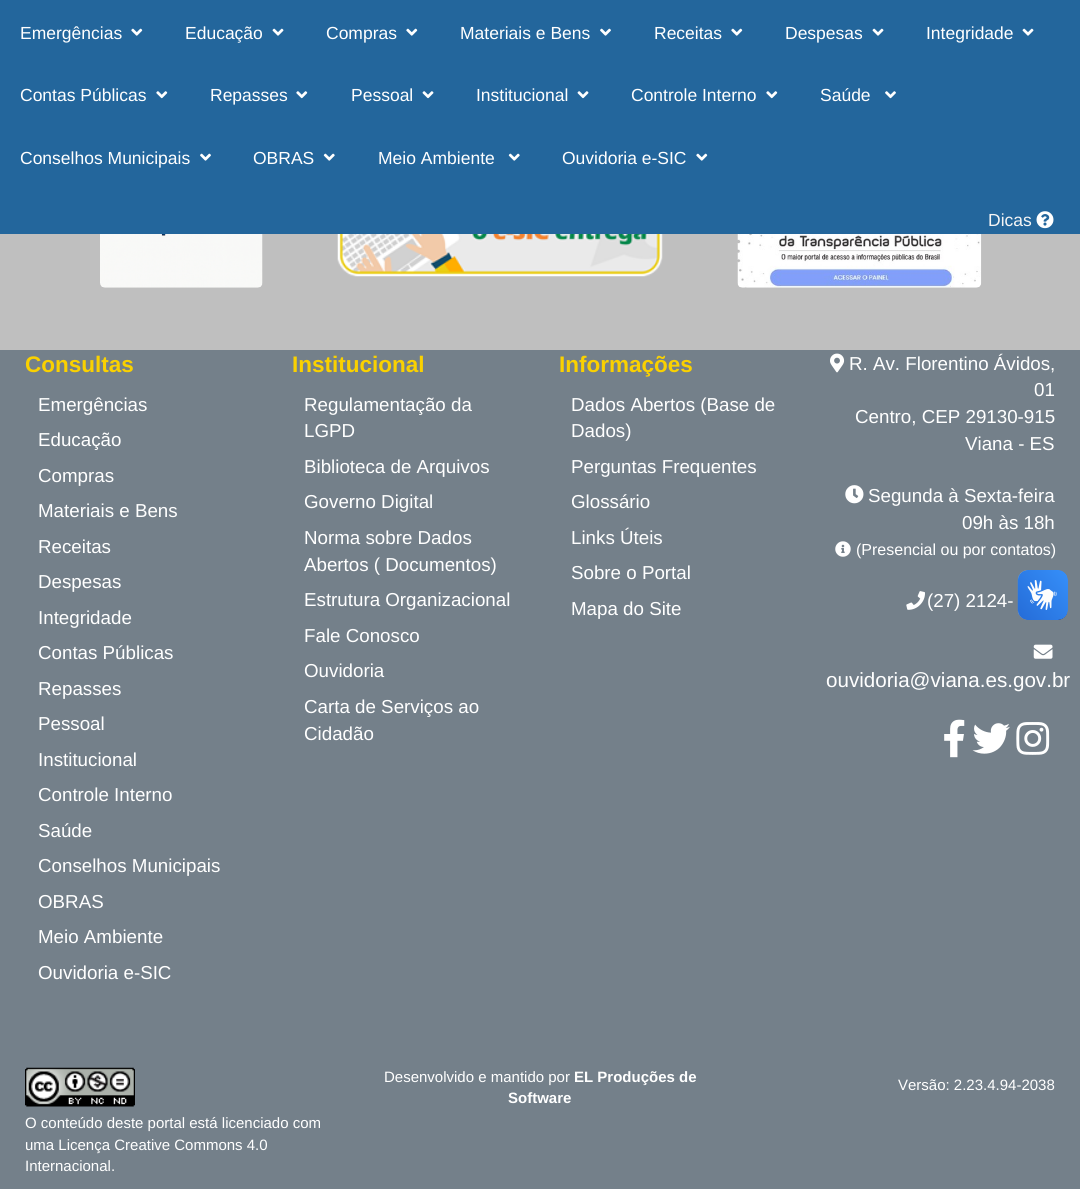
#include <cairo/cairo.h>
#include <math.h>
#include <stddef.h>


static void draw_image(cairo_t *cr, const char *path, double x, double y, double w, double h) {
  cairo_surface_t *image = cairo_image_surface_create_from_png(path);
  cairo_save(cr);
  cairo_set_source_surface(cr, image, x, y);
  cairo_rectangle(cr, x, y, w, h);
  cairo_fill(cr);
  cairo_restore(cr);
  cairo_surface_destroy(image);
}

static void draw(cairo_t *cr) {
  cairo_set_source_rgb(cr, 116 / 255.0, 128 / 255.0, 138 / 255.0);
  cairo_paint(cr);
  cairo_set_source_rgb(cr, 35 / 255.0, 102 / 255.0, 156 / 255.0);
  cairo_rectangle(cr, 0, 0, 1080, 234);
  cairo_fill(cr);
  draw_image(cr, "images/1.png", 131, 28, 12, 8);
  draw_image(cr, "images/2.png", 272, 28, 12, 8);
  draw_image(cr, "images/1.png", 406, 28, 12, 8);
  draw_image(cr, "images/3.png", 600, 28, 11, 8);
  draw_image(cr, "images/1.png", 731, 28, 12, 8);
  draw_image(cr, "images/2.png", 872, 28, 12, 8);
  draw_image(cr, "images/2.png", 1022, 28, 12, 8);
  draw_image(cr, "images/4.png", 156, 91, 12, 8);
  draw_image(cr, "images/4.png", 296, 91, 12, 8);
  draw_image(cr, "images/5.png", 422, 91, 12, 8);
  draw_image(cr, "images/5.png", 577, 91, 12, 8);
  draw_image(cr, "images/4.png", 766, 91, 12, 8);
  draw_image(cr, "images/6.png", 885, 91, 11, 8);
  draw_image(cr, "images/3.png", 200, 153, 11, 8);
  draw_image(cr, "images/7.png", 323, 153, 12, 8);
  draw_image(cr, "images/7.png", 508, 153, 12, 8);
  draw_image(cr, "images/1.png", 696, 153, 12, 8);
  draw_image(cr, "images/8.png", 1036, 211, 18, 18);
  cairo_set_source_rgb(cr, 191 / 255.0, 191 / 255.0, 191 / 255.0);
  cairo_rectangle(cr, 0, 234, 1080, 116);
  cairo_fill(cr);
  draw_image(cr, "images/9.png", 100, 234, 163, 54);
  draw_image(cr, "images/10.png", 337, 234, 326, 43);
  draw_image(cr, "images/11.png", 737, 234, 245, 54);
  draw_image(cr, "images/12.png", 830, 353, 15, 20);
  draw_image(cr, "images/13.png", 845, 485, 19, 19);
  draw_image(cr, "images/14.png", 835, 541, 16, 16);
  draw_image(cr, "images/15.png", 906, 591, 19, 19);
  draw_image(cr, "images/16.png", 1033, 644, 20, 15);
  draw_image(cr, "images/17.png", 944, 719, 21, 39);
  draw_image(cr, "images/18.png", 972, 723, 38, 31);
  draw_image(cr, "images/19.png", 1016, 722, 34, 33);
  draw_image(cr, "images/20.png", 25, 1067, 110, 40);
  draw_image(cr, "images/21.png", 1017, 570, 51, 50);
  draw_image(cr, "images/22.png", 1018, 570, 50, 50);
  cairo_select_font_face(cr, "Liberation Sans", CAIRO_FONT_SLANT_NORMAL, CAIRO_FONT_WEIGHT_NORMAL);
  cairo_set_font_size(cr, 17.5);
  cairo_set_source_rgb(cr, 1, 1, 1);
  cairo_move_to(cr, 20, 39);
  cairo_show_text(cr, "Emergências");
  cairo_move_to(cr, 185, 39);
  cairo_show_text(cr, "Educação");
  cairo_move_to(cr, 326, 39);
  cairo_show_text(cr, "Compras");
  cairo_move_to(cr, 460, 39);
  cairo_show_text(cr, "Materiais e Bens");
  cairo_move_to(cr, 654, 39);
  cairo_show_text(cr, "Receitas");
  cairo_move_to(cr, 785, 39);
  cairo_show_text(cr, "Despesas");
  cairo_move_to(cr, 926, 39);
  cairo_show_text(cr, "Integridade");
  cairo_move_to(cr, 20, 101);
  cairo_show_text(cr, "Contas Públicas");
  cairo_move_to(cr, 210, 101);
  cairo_show_text(cr, "Repasses");
  cairo_move_to(cr, 351, 101);
  cairo_show_text(cr, "Pessoal");
  cairo_move_to(cr, 476, 101);
  cairo_show_text(cr, "Institucional");
  cairo_move_to(cr, 631, 101);
  cairo_show_text(cr, "Controle Interno");
  cairo_move_to(cr, 820, 101);
  cairo_show_text(cr, "Saúde");
  cairo_move_to(cr, 20, 164);
  cairo_show_text(cr, "Conselhos Municipais");
  cairo_move_to(cr, 253, 164);
  cairo_show_text(cr, "OBRAS");
  cairo_move_to(cr, 378, 164);
  cairo_show_text(cr, "Meio Ambiente");
  cairo_move_to(cr, 562, 164);
  cairo_show_text(cr, "Ouvidoria e-SIC");
  cairo_set_source_rgb(cr, 245 / 255.0, 245 / 255.0, 245 / 255.0);
  cairo_move_to(cr, 988, 226);
  cairo_show_text(cr, "Dicas");
  cairo_select_font_face(cr, "Liberation Sans", CAIRO_FONT_SLANT_NORMAL, CAIRO_FONT_WEIGHT_BOLD);
  cairo_set_font_size(cr, 22.5);
  cairo_set_source_rgb(cr, 250 / 255.0, 209 / 255.0, 0);
  cairo_move_to(cr, 25, 372);
  cairo_show_text(cr, "Consultas");
  cairo_select_font_face(cr, "Liberation Sans", CAIRO_FONT_SLANT_NORMAL, CAIRO_FONT_WEIGHT_NORMAL);
  cairo_set_font_size(cr, 18.75);
  cairo_set_source_rgb(cr, 1, 1, 1);
  cairo_move_to(cr, 38, 411);
  cairo_show_text(cr, "Emergências");
  cairo_move_to(cr, 38, 446);
  cairo_show_text(cr, "Educação");
  cairo_move_to(cr, 38, 482);
  cairo_show_text(cr, "Compras");
  cairo_move_to(cr, 38, 517);
  cairo_show_text(cr, "Materiais e Bens");
  cairo_move_to(cr, 38, 553);
  cairo_show_text(cr, "Receitas");
  cairo_move_to(cr, 38, 588);
  cairo_show_text(cr, "Despesas");
  cairo_move_to(cr, 38, 624);
  cairo_show_text(cr, "Integridade");
  cairo_move_to(cr, 38, 659);
  cairo_show_text(cr, "Contas Públicas");
  cairo_move_to(cr, 38, 695);
  cairo_show_text(cr, "Repasses");
  cairo_move_to(cr, 38, 730);
  cairo_show_text(cr, "Pessoal");
  cairo_move_to(cr, 38, 766);
  cairo_show_text(cr, "Institucional");
  cairo_move_to(cr, 38, 801);
  cairo_show_text(cr, "Controle Interno");
  cairo_move_to(cr, 38, 837);
  cairo_show_text(cr, "Saúde");
  cairo_move_to(cr, 38, 872);
  cairo_show_text(cr, "Conselhos Municipais");
  cairo_move_to(cr, 38, 908);
  cairo_show_text(cr, "OBRAS");
  cairo_move_to(cr, 38, 943);
  cairo_show_text(cr, "Meio Ambiente");
  cairo_move_to(cr, 38, 979);
  cairo_show_text(cr, "Ouvidoria e-SIC");
  cairo_select_font_face(cr, "Liberation Sans", CAIRO_FONT_SLANT_NORMAL, CAIRO_FONT_WEIGHT_BOLD);
  cairo_set_font_size(cr, 22.5);
  cairo_set_source_rgb(cr, 250 / 255.0, 209 / 255.0, 0);
  cairo_move_to(cr, 292, 372);
  cairo_show_text(cr, "Institucional");
  cairo_select_font_face(cr, "Liberation Sans", CAIRO_FONT_SLANT_NORMAL, CAIRO_FONT_WEIGHT_NORMAL);
  cairo_set_font_size(cr, 18.75);
  cairo_set_source_rgb(cr, 1, 1, 1);
  cairo_move_to(cr, 304, 411);
  cairo_show_text(cr, "Regulamentação da");
  cairo_move_to(cr, 304, 437);
  cairo_show_text(cr, "LGPD");
  cairo_move_to(cr, 304, 473);
  cairo_show_text(cr, "Biblioteca de Arquivos");
  cairo_move_to(cr, 304, 508);
  cairo_show_text(cr, "Governo Digital");
  cairo_move_to(cr, 304, 544);
  cairo_show_text(cr, "Norma sobre Dados");
  cairo_move_to(cr, 304, 571);
  cairo_show_text(cr, "Abertos ( Documentos)");
  cairo_move_to(cr, 304, 606);
  cairo_show_text(cr, "Estrutura Organizacional");
  cairo_move_to(cr, 304, 642);
  cairo_show_text(cr, "Fale Conosco");
  cairo_move_to(cr, 304, 677);
  cairo_show_text(cr, "Ouvidoria");
  cairo_move_to(cr, 304, 713);
  cairo_show_text(cr, "Carta de Serviços ao");
  cairo_move_to(cr, 304, 740);
  cairo_show_text(cr, "Cidadão");
  cairo_select_font_face(cr, "Liberation Sans", CAIRO_FONT_SLANT_NORMAL, CAIRO_FONT_WEIGHT_BOLD);
  cairo_set_font_size(cr, 22.5);
  cairo_set_source_rgb(cr, 250 / 255.0, 209 / 255.0, 0);
  cairo_move_to(cr, 559, 372);
  cairo_show_text(cr, "Informações");
  cairo_select_font_face(cr, "Liberation Sans", CAIRO_FONT_SLANT_NORMAL, CAIRO_FONT_WEIGHT_NORMAL);
  cairo_set_font_size(cr, 18.75);
  cairo_set_source_rgb(cr, 1, 1, 1);
  cairo_move_to(cr, 571, 411);
  cairo_show_text(cr, "Dados Abertos (Base de");
  cairo_move_to(cr, 571, 437);
  cairo_show_text(cr, "Dados)");
  cairo_move_to(cr, 571, 473);
  cairo_show_text(cr, "Perguntas Frequentes");
  cairo_move_to(cr, 571, 508);
  cairo_show_text(cr, "Glossário");
  cairo_move_to(cr, 571, 544);
  cairo_show_text(cr, "Links Úteis");
  cairo_move_to(cr, 571, 579);
  cairo_show_text(cr, "Sobre o Portal");
  cairo_move_to(cr, 571, 615);
  cairo_show_text(cr, "Mapa do Site");
  cairo_move_to(cr, 849, 370);
  cairo_show_text(cr, "R. Av. Florentino Ávidos,");
  cairo_move_to(cr, 1034, 396);
  cairo_show_text(cr, "01");
  cairo_move_to(cr, 855, 423);
  cairo_show_text(cr, "Centro, CEP 29130-915");
  cairo_move_to(cr, 965, 450);
  cairo_show_text(cr, "Viana - ES");
  cairo_move_to(cr, 868, 502);
  cairo_show_text(cr, "Segunda à Sexta-feira");
  cairo_move_to(cr, 962, 529);
  cairo_show_text(cr, "09h às 18h");
  cairo_set_font_size(cr, 16);
  cairo_move_to(cr, 856, 555);
  cairo_show_text(cr, "(Presencial ou por contatos)");
  cairo_set_font_size(cr, 18.75);
  cairo_move_to(cr, 927, 607);
  cairo_show_text(cr, "(27) 2124-");
  cairo_set_font_size(cr, 20.6);
  cairo_move_to(cr, 826, 687);
  cairo_show_text(cr, "ouvidoria@viana.es.gov.br");
  cairo_set_font_size(cr, 15);
  cairo_move_to(cr, 384, 1082);
  cairo_show_text(cr, "Desenvolvido e mantido por");
  cairo_select_font_face(cr, "Liberation Sans", CAIRO_FONT_SLANT_NORMAL, CAIRO_FONT_WEIGHT_BOLD);
  cairo_move_to(cr, 574, 1082);
  cairo_show_text(cr, "EL Produções de");
  cairo_move_to(cr, 508, 1103);
  cairo_show_text(cr, "Software");
  cairo_select_font_face(cr, "Liberation Sans", CAIRO_FONT_SLANT_NORMAL, CAIRO_FONT_WEIGHT_NORMAL);
  cairo_move_to(cr, 898, 1090);
  cairo_show_text(cr, "Versão: 2.23.4.94-2038");
  cairo_move_to(cr, 25, 1128);
  cairo_show_text(cr, "O conteúdo deste portal está licenciado com");
  cairo_move_to(cr, 25, 1150);
  cairo_show_text(cr, "uma Licença Creative Commons 4.0");
  cairo_move_to(cr, 25, 1171);
  cairo_show_text(cr, "Internacional.");
}

int main(void) {
  cairo_surface_t *surface = cairo_image_surface_create(CAIRO_FORMAT_RGB24, 1080, 1189);
  cairo_t *cr = cairo_create(surface);
  cairo_font_options_t *options = cairo_font_options_create();
  cairo_font_options_set_hint_metrics(options, CAIRO_HINT_METRICS_OFF);
  cairo_font_options_set_hint_style(options, CAIRO_HINT_STYLE_NONE);
  cairo_set_font_options(cr, options);
  cairo_set_miter_limit(cr, 4);
  draw(cr);
  cairo_surface_write_to_png(surface, "out.png");
  cairo_font_options_destroy(options);
  cairo_destroy(cr);
  cairo_surface_destroy(surface);
  return 0;
}
